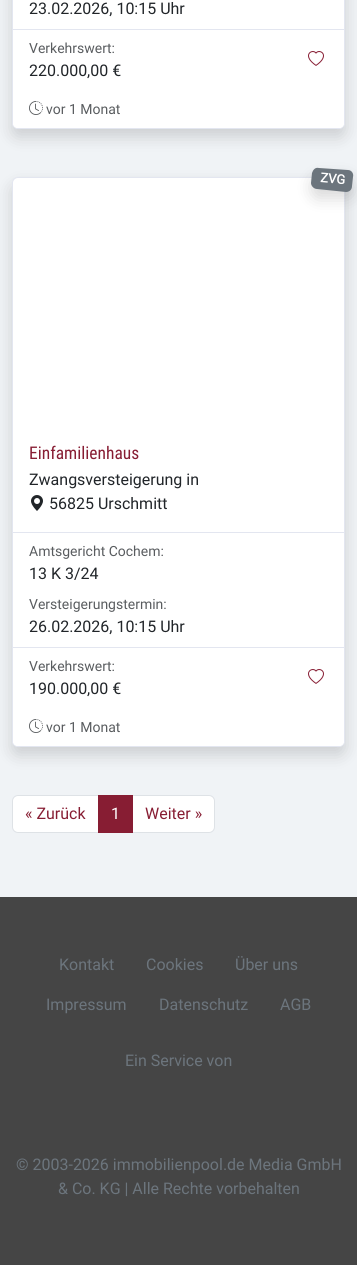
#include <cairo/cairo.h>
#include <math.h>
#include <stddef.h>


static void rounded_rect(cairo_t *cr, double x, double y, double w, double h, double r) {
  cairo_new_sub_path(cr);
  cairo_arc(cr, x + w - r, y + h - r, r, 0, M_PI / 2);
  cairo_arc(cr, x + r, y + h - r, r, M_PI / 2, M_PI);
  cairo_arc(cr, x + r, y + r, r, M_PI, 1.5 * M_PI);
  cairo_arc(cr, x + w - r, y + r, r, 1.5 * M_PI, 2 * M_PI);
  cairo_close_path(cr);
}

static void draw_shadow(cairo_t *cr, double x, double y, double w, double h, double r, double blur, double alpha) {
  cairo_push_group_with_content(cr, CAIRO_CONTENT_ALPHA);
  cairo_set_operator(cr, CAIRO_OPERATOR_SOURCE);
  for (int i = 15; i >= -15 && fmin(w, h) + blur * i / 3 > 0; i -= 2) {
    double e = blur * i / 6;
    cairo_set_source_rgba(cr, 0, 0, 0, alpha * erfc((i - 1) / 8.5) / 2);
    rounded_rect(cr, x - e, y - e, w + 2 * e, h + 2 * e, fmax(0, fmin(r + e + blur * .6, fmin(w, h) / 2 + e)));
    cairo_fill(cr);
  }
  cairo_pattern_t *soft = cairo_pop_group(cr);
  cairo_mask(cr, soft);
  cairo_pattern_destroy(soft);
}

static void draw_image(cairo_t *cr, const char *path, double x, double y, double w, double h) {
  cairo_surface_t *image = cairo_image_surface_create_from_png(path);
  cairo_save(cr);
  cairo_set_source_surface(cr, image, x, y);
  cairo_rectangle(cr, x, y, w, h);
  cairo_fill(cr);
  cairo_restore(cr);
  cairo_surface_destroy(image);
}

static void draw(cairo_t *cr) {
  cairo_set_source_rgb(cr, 69 / 255.0, 69 / 255.0, 69 / 255.0);
  cairo_paint(cr);
  cairo_set_source_rgb(cr, 240 / 255.0, 243 / 255.0, 246 / 255.0);
  cairo_rectangle(cr, 0, 0, 357, 897);
  cairo_fill(cr);
  cairo_set_source_rgb(cr, 0, 0, 0);
  draw_shadow(cr, 12, -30, 333, 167, 6, 8, 0.15);
  cairo_set_source_rgb(cr, 1, 1, 1);
  rounded_rect(cr, 12.5, -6.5, 332, 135, 5.5);
  cairo_fill_preserve(cr);
  cairo_set_source_rgb(cr, 227 / 255.0, 230 / 255.0, 240 / 255.0);
  cairo_set_line_width(cr, 1);
  cairo_stroke(cr);
  cairo_rectangle(cr, 13, 29, 331, 1);
  cairo_fill(cr);
  cairo_set_source_rgb(cr, 1, 1, 1);
  cairo_new_path(cr);
  cairo_move_to(cr, 13, 30);
  cairo_line_to(cr, 344, 30);
  cairo_line_to(cr, 344, 123);
  cairo_curve_to(cr, 344, 126, 342, 128, 339, 128);
  cairo_line_to(cr, 18, 128);
  cairo_curve_to(cr, 15, 128, 13, 126, 13, 123);
  cairo_close_path(cr);
  cairo_fill(cr);
  draw_image(cr, "images/1.png", 308, 51, 16, 15);
  draw_image(cr, "images/2.png", 29, 101, 14, 14);
  cairo_set_source_rgb(cr, 0, 0, 0);
  draw_shadow(cr, 12, 185, 333, 570, 6, 8, 0.15);
  cairo_set_source_rgb(cr, 1, 1, 1);
  rounded_rect(cr, 12.5, 177.5, 332, 569, 5.5);
  cairo_fill_preserve(cr);
  cairo_set_source_rgb(cr, 227 / 255.0, 230 / 255.0, 240 / 255.0);
  cairo_stroke(cr);
  cairo_set_source_rgb(cr, 0, 0, 0);
  draw_shadow(cr, 312, 177, 41, 21, 6, 8, 0.15);
  cairo_set_source_rgb(cr, 108 / 255.0, 117 / 255.0, 125 / 255.0);
  cairo_new_path(cr);
  cairo_move_to(cr, 319, 168);
  cairo_line_to(cr, 348, 170);
  cairo_curve_to(cr, 351, 170, 354, 173, 353, 177);
  cairo_line_to(cr, 352, 186);
  cairo_curve_to(cr, 352, 190, 349, 192, 346, 192);
  cairo_line_to(cr, 317, 189);
  cairo_curve_to(cr, 314, 189, 311, 186, 311, 183);
  cairo_line_to(cr, 312, 173);
  cairo_curve_to(cr, 313, 170, 315, 167, 319, 168);
  cairo_close_path(cr);
  cairo_fill(cr);
  draw_image(cr, "images/3.png", 31, 495, 12, 16);
  cairo_set_source_rgb(cr, 227 / 255.0, 230 / 255.0, 240 / 255.0);
  cairo_rectangle(cr, 13, 532, 331, 1);
  cairo_fill(cr);
  cairo_rectangle(cr, 13, 647, 331, 1);
  cairo_fill(cr);
  cairo_set_source_rgb(cr, 1, 1, 1);
  cairo_new_path(cr);
  cairo_move_to(cr, 13, 648);
  cairo_line_to(cr, 344, 648);
  cairo_line_to(cr, 344, 741);
  cairo_curve_to(cr, 344, 744, 342, 746, 339, 746);
  cairo_line_to(cr, 18, 746);
  cairo_curve_to(cr, 15, 746, 13, 744, 13, 741);
  cairo_close_path(cr);
  cairo_fill(cr);
  draw_image(cr, "images/1.png", 308, 669, 16, 15);
  draw_image(cr, "images/2.png", 29, 719, 14, 14);
  cairo_new_path(cr);
  cairo_move_to(cr, 18, 795.5);
  cairo_line_to(cr, 98.5, 795.5);
  cairo_line_to(cr, 98.5, 832.5);
  cairo_line_to(cr, 18, 832.5);
  cairo_curve_to(cr, 15, 832.5, 12.5, 830, 12.5, 827);
  cairo_line_to(cr, 12.5, 801);
  cairo_curve_to(cr, 12.5, 798, 15, 795.5, 18, 795.5);
  cairo_close_path(cr);
  cairo_fill_preserve(cr);
  cairo_set_source_rgb(cr, 222 / 255.0, 226 / 255.0, 230 / 255.0);
  cairo_stroke(cr);
  cairo_set_source_rgb(cr, 1, 1, 1);
  cairo_new_path(cr);
  cairo_move_to(cr, 132.5, 795.5);
  cairo_line_to(cr, 209, 795.5);
  cairo_curve_to(cr, 212, 795.5, 214.5, 798, 214.5, 801);
  cairo_line_to(cr, 214.5, 827);
  cairo_curve_to(cr, 214.5, 830, 212, 832.5, 209, 832.5);
  cairo_line_to(cr, 132.5, 832.5);
  cairo_close_path(cr);
  cairo_fill_preserve(cr);
  cairo_set_source_rgb(cr, 222 / 255.0, 226 / 255.0, 230 / 255.0);
  cairo_stroke(cr);
  cairo_set_source_rgb(cr, 135 / 255.0, 29 / 255.0, 51 / 255.0);
  cairo_rectangle(cr, 98, 795, 35, 38);
  cairo_fill(cr);
  cairo_select_font_face(cr, "Roboto", CAIRO_FONT_SLANT_NORMAL, CAIRO_FONT_WEIGHT_NORMAL);
  cairo_set_font_size(cr, 16);
  cairo_set_source_rgb(cr, 33 / 255.0, 37 / 255.0, 41 / 255.0);
  cairo_move_to(cr, 29, 14);
  cairo_show_text(cr, "23.02.2026, 10:15 Uhr");
  cairo_set_font_size(cr, 14);
  cairo_set_source_rgb(cr, 89 / 255.0, 92 / 255.0, 95 / 255.0);
  cairo_move_to(cr, 29, 53);
  cairo_show_text(cr, "Verkehrswert:");
  cairo_set_font_size(cr, 16);
  cairo_set_source_rgb(cr, 33 / 255.0, 37 / 255.0, 41 / 255.0);
  cairo_move_to(cr, 29, 76);
  cairo_show_text(cr, "220.000,00 €");
  cairo_set_font_size(cr, 14);
  cairo_set_source_rgb(cr, 89 / 255.0, 92 / 255.0, 95 / 255.0);
  cairo_move_to(cr, 46, 114);
  cairo_show_text(cr, "vor 1 Monat");
  cairo_select_font_face(cr, "Roboto", CAIRO_FONT_SLANT_NORMAL, CAIRO_FONT_WEIGHT_BOLD);
  cairo_set_font_size(cr, 13);
  cairo_set_source_rgb(cr, 1, 1, 1);
  cairo_save(cr);
  cairo_translate(cr, 320, 182);
  cairo_rotate(cr, 5 * M_PI / 180);
  cairo_move_to(cr, 0, 0);
  cairo_show_text(cr, "ZVG");
  cairo_restore(cr);
  cairo_select_font_face(cr, "Roboto Condensed", CAIRO_FONT_SLANT_NORMAL, CAIRO_FONT_WEIGHT_NORMAL);
  cairo_set_font_size(cr, 17.5);
  cairo_set_source_rgb(cr, 135 / 255.0, 29 / 255.0, 51 / 255.0);
  cairo_move_to(cr, 29, 459);
  cairo_show_text(cr, "Einfamilienhaus");
  cairo_select_font_face(cr, "Roboto", CAIRO_FONT_SLANT_NORMAL, CAIRO_FONT_WEIGHT_NORMAL);
  cairo_set_font_size(cr, 16);
  cairo_set_source_rgb(cr, 33 / 255.0, 37 / 255.0, 41 / 255.0);
  cairo_move_to(cr, 29, 485);
  cairo_show_text(cr, "Zwangsversteigerung in");
  cairo_move_to(cr, 49, 509);
  cairo_show_text(cr, "56825 Urschmitt");
  cairo_set_font_size(cr, 14);
  cairo_set_source_rgb(cr, 89 / 255.0, 92 / 255.0, 95 / 255.0);
  cairo_move_to(cr, 29, 556);
  cairo_show_text(cr, "Amtsgericht Cochem:");
  cairo_set_font_size(cr, 16);
  cairo_set_source_rgb(cr, 33 / 255.0, 37 / 255.0, 41 / 255.0);
  cairo_move_to(cr, 29, 579);
  cairo_show_text(cr, "13 K 3/24");
  cairo_set_font_size(cr, 14);
  cairo_set_source_rgb(cr, 89 / 255.0, 92 / 255.0, 95 / 255.0);
  cairo_move_to(cr, 29, 609);
  cairo_show_text(cr, "Versteigerungstermin:");
  cairo_set_font_size(cr, 16);
  cairo_set_source_rgb(cr, 33 / 255.0, 37 / 255.0, 41 / 255.0);
  cairo_move_to(cr, 29, 632);
  cairo_show_text(cr, "26.02.2026, 10:15 Uhr");
  cairo_set_font_size(cr, 14);
  cairo_set_source_rgb(cr, 89 / 255.0, 92 / 255.0, 95 / 255.0);
  cairo_move_to(cr, 29, 671);
  cairo_show_text(cr, "Verkehrswert:");
  cairo_set_font_size(cr, 16);
  cairo_set_source_rgb(cr, 33 / 255.0, 37 / 255.0, 41 / 255.0);
  cairo_move_to(cr, 29, 694);
  cairo_show_text(cr, "190.000,00 €");
  cairo_set_font_size(cr, 14);
  cairo_set_source_rgb(cr, 89 / 255.0, 92 / 255.0, 95 / 255.0);
  cairo_move_to(cr, 46, 732);
  cairo_show_text(cr, "vor 1 Monat");
  cairo_set_font_size(cr, 16);
  cairo_set_source_rgb(cr, 135 / 255.0, 29 / 255.0, 51 / 255.0);
  cairo_move_to(cr, 25, 819);
  cairo_show_text(cr, "« Zurück");
  cairo_set_source_rgb(cr, 1, 1, 1);
  cairo_move_to(cr, 111, 819);
  cairo_show_text(cr, "1");
  cairo_set_source_rgb(cr, 135 / 255.0, 29 / 255.0, 51 / 255.0);
  cairo_move_to(cr, 145, 819);
  cairo_show_text(cr, "Weiter »");
  cairo_set_source_rgb(cr, 108 / 255.0, 117 / 255.0, 125 / 255.0);
  cairo_move_to(cr, 59, 970);
  cairo_show_text(cr, "Kontakt");
  cairo_move_to(cr, 146, 970);
  cairo_show_text(cr, "Cookies");
  cairo_move_to(cr, 235, 970);
  cairo_show_text(cr, "Über uns");
  cairo_move_to(cr, 46, 1010);
  cairo_show_text(cr, "Impressum");
  cairo_move_to(cr, 159, 1010);
  cairo_show_text(cr, "Datenschutz");
  cairo_move_to(cr, 280, 1010);
  cairo_show_text(cr, "AGB");
  cairo_move_to(cr, 125, 1066);
  cairo_show_text(cr, "Ein Service von");
  cairo_move_to(cr, 16, 1170);
  cairo_show_text(cr, "© 2003-2026 immobilienpool.de Media GmbH");
  cairo_move_to(cr, 58, 1194);
  cairo_show_text(cr, "& Co. KG | Alle Rechte vorbehalten");
}

int main(void) {
  cairo_surface_t *surface = cairo_image_surface_create(CAIRO_FORMAT_RGB24, 357, 1265);
  cairo_t *cr = cairo_create(surface);
  cairo_font_options_t *options = cairo_font_options_create();
  cairo_font_options_set_hint_metrics(options, CAIRO_HINT_METRICS_OFF);
  cairo_font_options_set_hint_style(options, CAIRO_HINT_STYLE_NONE);
  cairo_set_font_options(cr, options);
  cairo_set_miter_limit(cr, 4);
  draw(cr);
  cairo_surface_write_to_png(surface, "out.png");
  cairo_font_options_destroy(options);
  cairo_destroy(cr);
  cairo_surface_destroy(surface);
  return 0;
}
